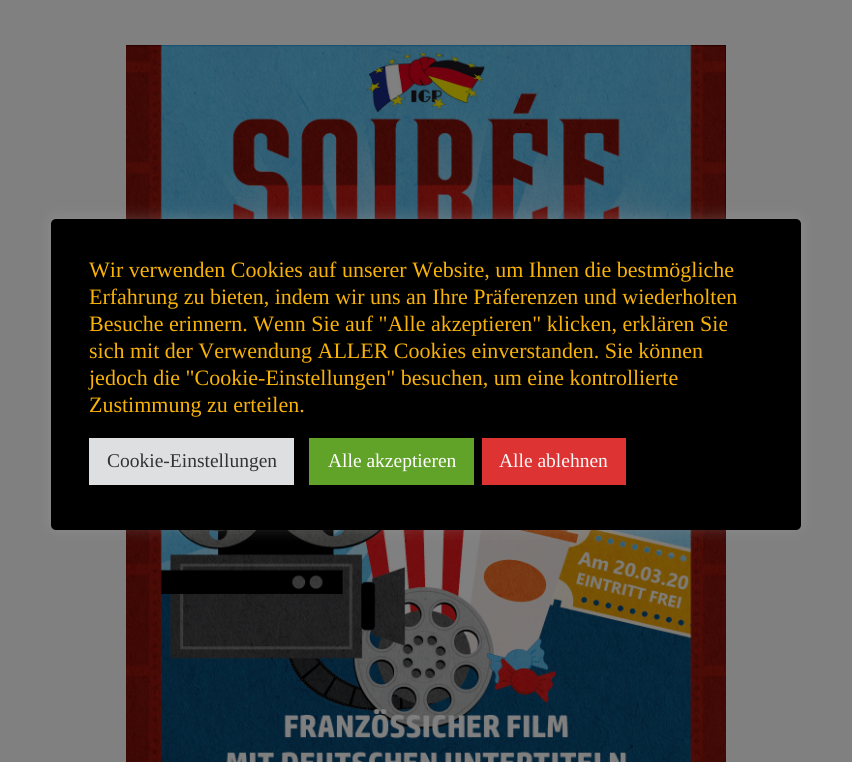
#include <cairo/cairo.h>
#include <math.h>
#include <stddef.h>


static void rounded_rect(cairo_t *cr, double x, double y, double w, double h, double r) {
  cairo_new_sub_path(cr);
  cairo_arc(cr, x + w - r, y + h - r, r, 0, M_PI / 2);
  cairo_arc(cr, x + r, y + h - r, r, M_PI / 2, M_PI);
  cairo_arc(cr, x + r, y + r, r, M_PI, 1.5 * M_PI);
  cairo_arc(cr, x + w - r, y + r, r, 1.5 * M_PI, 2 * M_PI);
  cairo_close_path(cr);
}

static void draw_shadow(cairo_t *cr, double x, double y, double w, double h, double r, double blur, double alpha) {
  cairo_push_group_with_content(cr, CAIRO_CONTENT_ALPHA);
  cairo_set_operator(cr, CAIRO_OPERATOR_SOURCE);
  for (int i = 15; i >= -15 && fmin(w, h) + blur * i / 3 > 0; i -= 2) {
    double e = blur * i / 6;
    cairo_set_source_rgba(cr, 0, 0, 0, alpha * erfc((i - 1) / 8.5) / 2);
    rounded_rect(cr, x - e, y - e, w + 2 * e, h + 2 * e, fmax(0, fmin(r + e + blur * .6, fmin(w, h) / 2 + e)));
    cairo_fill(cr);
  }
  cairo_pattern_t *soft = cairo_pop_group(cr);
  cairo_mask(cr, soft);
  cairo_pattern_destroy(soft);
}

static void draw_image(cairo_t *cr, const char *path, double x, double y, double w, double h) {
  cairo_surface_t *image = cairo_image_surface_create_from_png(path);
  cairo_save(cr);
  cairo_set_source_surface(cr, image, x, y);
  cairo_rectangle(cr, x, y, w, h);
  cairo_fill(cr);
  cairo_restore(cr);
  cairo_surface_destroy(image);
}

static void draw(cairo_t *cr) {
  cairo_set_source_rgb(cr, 128 / 255.0, 128 / 255.0, 128 / 255.0);
  cairo_paint(cr);
  draw_image(cr, "images/1.png", 126, 45, 600, 717);
  cairo_set_source_rgb(cr, 172 / 255.0, 171 / 255.0, 171 / 255.0);
  draw_shadow(cr, 51, 218, 750, 310, 5, 7.5, 0.3);
  cairo_set_source_rgb(cr, 0, 0, 0);
  rounded_rect(cr, 51, 219, 750, 311, 5);
  cairo_fill(cr);
  cairo_set_source_rgb(cr, 222 / 255.0, 223 / 255.0, 224 / 255.0);
  cairo_rectangle(cr, 89, 438, 205, 47);
  cairo_fill(cr);
  cairo_set_source_rgb(cr, 97 / 255.0, 162 / 255.0, 41 / 255.0);
  cairo_rectangle(cr, 309, 438, 165, 47);
  cairo_fill(cr);
  cairo_set_source_rgb(cr, 221 / 255.0, 51 / 255.0, 51 / 255.0);
  cairo_rectangle(cr, 482, 438, 144, 47);
  cairo_fill(cr);
  cairo_select_font_face(cr, "Liberation Serif", CAIRO_FONT_SLANT_NORMAL, CAIRO_FONT_WEIGHT_NORMAL);
  cairo_set_font_size(cr, 22);
  cairo_set_source_rgb(cr, 248 / 255.0, 178 / 255.0, 8 / 255.0);
  cairo_move_to(cr, 89, 277);
  cairo_show_text(cr, "Wir verwenden Cookies auf unserer Website, um Ihnen die bestmögliche");
  cairo_move_to(cr, 89, 304);
  cairo_show_text(cr, "Erfahrung zu bieten, indem wir uns an Ihre Präferenzen und wiederholten");
  cairo_move_to(cr, 89, 331);
  cairo_show_text(cr, "Besuche erinnern. Wenn Sie auf \"Alle akzeptieren\" klicken, erklären Sie");
  cairo_move_to(cr, 89, 358);
  cairo_show_text(cr, "sich mit der Verwendung ALLER Cookies einverstanden. Sie können");
  cairo_move_to(cr, 89, 385);
  cairo_show_text(cr, "jedoch die \"Cookie-Einstellungen\" besuchen, um eine kontrollierte");
  cairo_move_to(cr, 89, 412);
  cairo_show_text(cr, "Zustimmung zu erteilen.");
  cairo_set_font_size(cr, 19.5);
  cairo_set_source_rgb(cr, 51 / 255.0, 51 / 255.0, 51 / 255.0);
  cairo_move_to(cr, 107, 467);
  cairo_show_text(cr, "Cookie-Einstellungen");
  cairo_set_source_rgb(cr, 1, 1, 1);
  cairo_move_to(cr, 328, 467);
  cairo_show_text(cr, "Alle akzeptieren");
  cairo_set_source_rgb(cr, 249 / 255.0, 249 / 255.0, 249 / 255.0);
  cairo_move_to(cr, 499, 467);
  cairo_show_text(cr, "Alle ablehnen");
}

int main(void) {
  cairo_surface_t *surface = cairo_image_surface_create(CAIRO_FORMAT_RGB24, 852, 762);
  cairo_t *cr = cairo_create(surface);
  cairo_font_options_t *options = cairo_font_options_create();
  cairo_font_options_set_hint_metrics(options, CAIRO_HINT_METRICS_OFF);
  cairo_font_options_set_hint_style(options, CAIRO_HINT_STYLE_NONE);
  cairo_set_font_options(cr, options);
  cairo_set_miter_limit(cr, 4);
  draw(cr);
  cairo_surface_write_to_png(surface, "out.png");
  cairo_font_options_destroy(options);
  cairo_destroy(cr);
  cairo_surface_destroy(surface);
  return 0;
}
